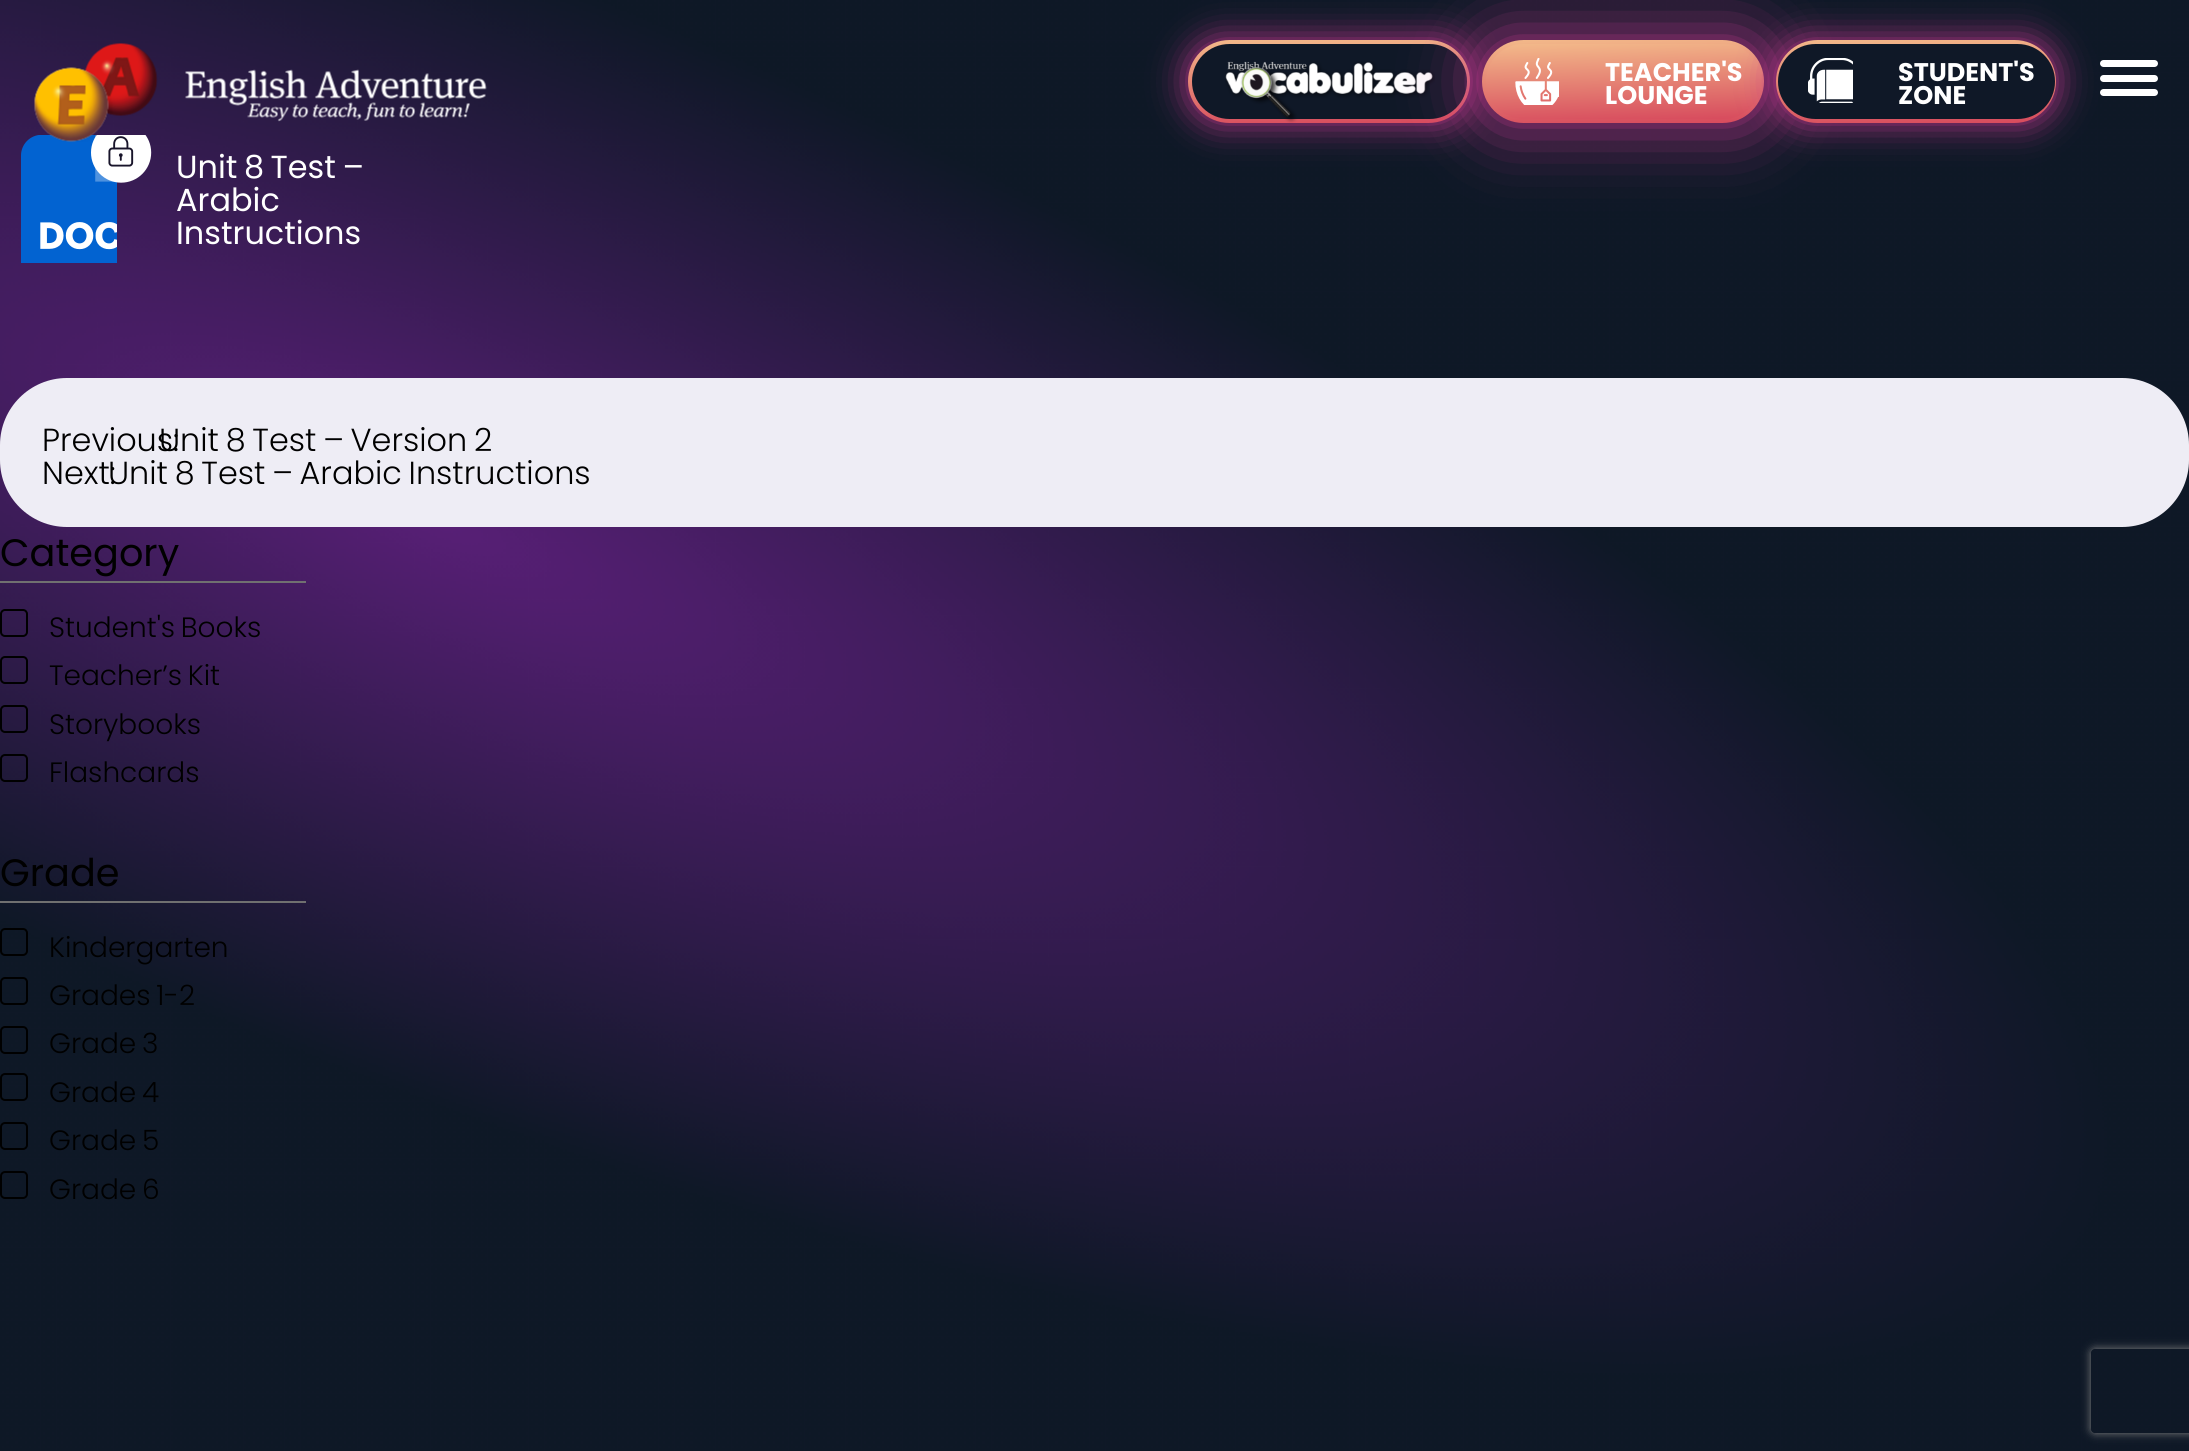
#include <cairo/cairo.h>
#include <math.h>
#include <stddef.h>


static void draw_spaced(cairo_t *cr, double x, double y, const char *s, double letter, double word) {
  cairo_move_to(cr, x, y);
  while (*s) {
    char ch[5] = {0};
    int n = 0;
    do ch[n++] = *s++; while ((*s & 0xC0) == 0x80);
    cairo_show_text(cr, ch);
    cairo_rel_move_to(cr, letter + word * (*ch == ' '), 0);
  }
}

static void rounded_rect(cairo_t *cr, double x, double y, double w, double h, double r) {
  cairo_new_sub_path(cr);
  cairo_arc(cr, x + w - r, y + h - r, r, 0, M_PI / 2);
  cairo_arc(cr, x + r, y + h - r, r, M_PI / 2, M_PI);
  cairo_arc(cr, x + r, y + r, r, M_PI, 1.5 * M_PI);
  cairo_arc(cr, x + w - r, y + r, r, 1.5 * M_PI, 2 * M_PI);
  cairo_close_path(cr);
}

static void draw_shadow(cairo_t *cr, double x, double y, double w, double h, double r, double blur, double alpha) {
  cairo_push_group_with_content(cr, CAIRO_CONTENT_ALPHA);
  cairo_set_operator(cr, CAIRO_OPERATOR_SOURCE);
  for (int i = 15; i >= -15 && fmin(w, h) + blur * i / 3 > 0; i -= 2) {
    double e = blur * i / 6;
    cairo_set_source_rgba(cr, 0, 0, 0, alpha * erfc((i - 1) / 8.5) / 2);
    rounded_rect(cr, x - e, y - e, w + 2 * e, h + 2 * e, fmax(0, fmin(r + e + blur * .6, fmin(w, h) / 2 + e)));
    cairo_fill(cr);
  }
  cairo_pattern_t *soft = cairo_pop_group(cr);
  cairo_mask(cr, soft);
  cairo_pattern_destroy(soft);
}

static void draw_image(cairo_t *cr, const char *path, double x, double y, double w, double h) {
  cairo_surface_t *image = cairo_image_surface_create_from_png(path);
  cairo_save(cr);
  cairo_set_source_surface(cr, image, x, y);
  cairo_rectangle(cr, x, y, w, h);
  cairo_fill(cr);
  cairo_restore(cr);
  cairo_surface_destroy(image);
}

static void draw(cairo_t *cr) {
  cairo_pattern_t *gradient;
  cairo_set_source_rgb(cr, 24 / 255.0, 20 / 255.0, 42 / 255.0);
  cairo_paint(cr);
  draw_image(cr, "images/1.png", 0, 0, 2189, 1451);
  draw_image(cr, "images/6.png", 21, 135, 96, 128);
  draw_image(cr, "images/7.png", 91, 135, 61, 48);
  draw_image(cr, "images/2.png", 34, 43, 453, 99);
  cairo_set_source_rgb(cr, 191 / 255.0, 54 / 255.0, 140 / 255.0);
  draw_shadow(cr, 1188, 40, 282, 83, 41.5, 17.5, 1);
  gradient = cairo_pattern_create_linear(1328, 35, 1331, 127);
  cairo_pattern_add_color_stop_rgba(gradient, 0, 243 / 255.0, 186 / 255.0, 138 / 255.0, 1);
  cairo_pattern_add_color_stop_rgba(gradient, 1, 215 / 255.0, 74 / 255.0, 93 / 255.0, 1);
  cairo_set_source(cr, gradient);
  cairo_pattern_destroy(gradient);
  rounded_rect(cr, 1188, 40, 282, 83, 41.5);
  cairo_fill(cr);
  cairo_set_source_rgb(cr, 15 / 255.0, 24 / 255.0, 39 / 255.0);
  rounded_rect(cr, 1192, 44, 275, 75, 37.5);
  cairo_fill(cr);
  draw_image(cr, "images/3.png", 1225, 61, 210, 62);
  cairo_set_source_rgb(cr, 191 / 255.0, 54 / 255.0, 140 / 255.0);
  draw_shadow(cr, 1482, 40, 282, 83, 41.5, 35, 1);
  gradient = cairo_pattern_create_linear(1622, 35, 1625, 127);
  cairo_pattern_add_color_stop_rgba(gradient, 0, 243 / 255.0, 186 / 255.0, 138 / 255.0, 1);
  cairo_pattern_add_color_stop_rgba(gradient, 1, 215 / 255.0, 74 / 255.0, 93 / 255.0, 1);
  cairo_set_source(cr, gradient);
  cairo_pattern_destroy(gradient);
  rounded_rect(cr, 1482, 40, 282, 83, 41.5);
  cairo_fill(cr);
  gradient = cairo_pattern_create_linear(1622, 39, 1625, 124);
  cairo_pattern_add_color_stop_rgba(gradient, 0, 243 / 255.0, 186 / 255.0, 138 / 255.0, 1);
  cairo_pattern_add_color_stop_rgba(gradient, 1, 215 / 255.0, 74 / 255.0, 93 / 255.0, 1);
  cairo_set_source(cr, gradient);
  cairo_pattern_destroy(gradient);
  rounded_rect(cr, 1486, 44, 275, 75, 37.5);
  cairo_fill(cr);
  draw_image(cr, "images/4.png", 1515, 58, 44, 47);
  cairo_set_source_rgb(cr, 191 / 255.0, 54 / 255.0, 140 / 255.0);
  draw_shadow(cr, 1776, 40, 280, 83, 41.5, 17.5, 1);
  gradient = cairo_pattern_create_linear(1915, 35, 1918, 127);
  cairo_pattern_add_color_stop_rgba(gradient, 0, 243 / 255.0, 186 / 255.0, 138 / 255.0, 1);
  cairo_pattern_add_color_stop_rgba(gradient, 1, 215 / 255.0, 74 / 255.0, 93 / 255.0, 1);
  cairo_set_source(cr, gradient);
  cairo_pattern_destroy(gradient);
  rounded_rect(cr, 1776, 40, 280, 83, 41.5);
  cairo_fill(cr);
  cairo_set_source_rgb(cr, 15 / 255.0, 24 / 255.0, 39 / 255.0);
  rounded_rect(cr, 1778, 44, 277, 75, 37.5);
  cairo_fill(cr);
  draw_image(cr, "images/5.png", 1808, 58, 45, 45);
  cairo_set_source_rgb(cr, 1, 1, 1);
  rounded_rect(cr, 2100, 60, 58, 7, 3.5);
  cairo_fill(cr);
  rounded_rect(cr, 2100, 75, 58, 7, 3.5);
  cairo_fill(cr);
  rounded_rect(cr, 2100, 89, 58, 7, 3.5);
  cairo_fill(cr);
  cairo_set_source_rgb(cr, 238 / 255.0, 237 / 255.0, 245 / 255.0);
  rounded_rect(cr, 0, 378, 2189, 149, 67);
  cairo_fill(cr);
  cairo_set_source_rgb(cr, 112 / 255.0, 112 / 255.0, 112 / 255.0);
  cairo_rectangle(cr, 0, 581, 306, 2);
  cairo_fill(cr);
  rounded_rect(cr, 1, 610, 26, 26, 4);
  cairo_set_source_rgb(cr, 0, 0, 0);
  cairo_stroke(cr);
  rounded_rect(cr, 1, 657, 26, 26, 4);
  cairo_stroke(cr);
  rounded_rect(cr, 1, 706, 26, 26, 4);
  cairo_stroke(cr);
  rounded_rect(cr, 1, 755, 26, 26, 4);
  cairo_stroke(cr);
  cairo_set_source_rgb(cr, 112 / 255.0, 112 / 255.0, 112 / 255.0);
  cairo_rectangle(cr, 0, 901, 306, 2);
  cairo_fill(cr);
  rounded_rect(cr, 1, 929, 26, 26, 4);
  cairo_set_source_rgb(cr, 0, 0, 0);
  cairo_stroke(cr);
  rounded_rect(cr, 1, 978, 26, 26, 4);
  cairo_stroke(cr);
  rounded_rect(cr, 1, 1027, 26, 26, 4);
  cairo_stroke(cr);
  rounded_rect(cr, 1, 1074, 26, 26, 4);
  cairo_stroke(cr);
  rounded_rect(cr, 1, 1123, 26, 26, 4);
  cairo_stroke(cr);
  rounded_rect(cr, 1, 1172, 26, 26, 4);
  cairo_stroke(cr);
  cairo_save(cr);
  cairo_set_fill_rule(cr, CAIRO_FILL_RULE_EVEN_ODD);
  cairo_new_path(cr);
  cairo_move_to(cr, 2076, 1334);
  cairo_line_to(cr, 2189, 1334);
  cairo_line_to(cr, 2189, 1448);
  cairo_line_to(cr, 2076, 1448);
  cairo_close_path(cr);
  cairo_move_to(cr, 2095, 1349);
  cairo_line_to(cr, 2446, 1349);
  cairo_curve_to(cr, 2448, 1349, 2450, 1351, 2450, 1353);
  cairo_line_to(cr, 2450, 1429);
  cairo_curve_to(cr, 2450, 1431, 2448, 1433, 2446, 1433);
  cairo_line_to(cr, 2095, 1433);
  cairo_curve_to(cr, 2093, 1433, 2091, 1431, 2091, 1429);
  cairo_line_to(cr, 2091, 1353);
  cairo_curve_to(cr, 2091, 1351, 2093, 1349, 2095, 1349);
  cairo_close_path(cr);
  cairo_clip(cr);
  cairo_set_source_rgb(cr, 128 / 255.0, 128 / 255.0, 128 / 255.0);
  draw_shadow(cr, 2091, 1349, 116, 84, 4, 4.5, 1);
  cairo_restore(cr);
  cairo_select_font_face(cr, "Poppins", CAIRO_FONT_SLANT_NORMAL, CAIRO_FONT_WEIGHT_BOLD);
  cairo_set_font_size(cr, 25.5);
  cairo_set_source_rgb(cr, 1, 1, 1);
  cairo_move_to(cr, 1605, 81);
  cairo_show_text(cr, "TEACHER'S");
  cairo_move_to(cr, 1605, 104);
  cairo_show_text(cr, "LOUNGE");
  cairo_move_to(cr, 1898, 81);
  cairo_show_text(cr, "STUDENT'S");
  cairo_move_to(cr, 1898, 104);
  cairo_show_text(cr, "ZONE");
  cairo_select_font_face(cr, "Poppins", CAIRO_FONT_SLANT_NORMAL, CAIRO_FONT_WEIGHT_NORMAL);
  cairo_set_font_size(cr, 31.9);
  draw_spaced(cr, 176, 178, "Unit 8 Test –", 0, -2);
  cairo_move_to(cr, 176, 211);
  cairo_show_text(cr, "Arabic");
  cairo_move_to(cr, 176, 244);
  cairo_show_text(cr, "Instructions");
  cairo_select_font_face(cr, "Poppins Light", CAIRO_FONT_SLANT_NORMAL, CAIRO_FONT_WEIGHT_NORMAL);
  cairo_set_source_rgb(cr, 0, 0, 0);
  cairo_move_to(cr, 42, 451);
  cairo_show_text(cr, "Previous:");
  draw_spaced(cr, 159, 451, "Unit 8 Test – Version 2", 0, -2);
  cairo_move_to(cr, 42, 484);
  cairo_show_text(cr, "Next:");
  draw_spaced(cr, 108, 484, "Unit 8 Test – Arabic Instructions", 0, -2);
  cairo_select_font_face(cr, "Poppins", CAIRO_FONT_SLANT_NORMAL, CAIRO_FONT_WEIGHT_NORMAL);
  cairo_set_font_size(cr, 38.25);
  cairo_move_to(cr, 0, 566);
  cairo_show_text(cr, "Category");
  cairo_select_font_face(cr, "Poppins Light", CAIRO_FONT_SLANT_NORMAL, CAIRO_FONT_WEIGHT_NORMAL);
  cairo_set_font_size(cr, 28);
  draw_spaced(cr, 49, 637, "Student's Books", 0, -2);
  draw_spaced(cr, 49, 685, "Teacher’s Kit", 0, -2);
  cairo_move_to(cr, 49, 734);
  cairo_show_text(cr, "Storybooks");
  cairo_move_to(cr, 49, 782);
  cairo_show_text(cr, "Flashcards");
  cairo_select_font_face(cr, "Poppins", CAIRO_FONT_SLANT_NORMAL, CAIRO_FONT_WEIGHT_NORMAL);
  cairo_set_font_size(cr, 38.25);
  cairo_move_to(cr, 0, 886);
  cairo_show_text(cr, "Grade");
  cairo_select_font_face(cr, "Poppins Light", CAIRO_FONT_SLANT_NORMAL, CAIRO_FONT_WEIGHT_NORMAL);
  cairo_set_font_size(cr, 28);
  cairo_move_to(cr, 49, 957);
  cairo_show_text(cr, "Kindergarten");
  draw_spaced(cr, 49, 1005, "Grades 1-2", 0, -2);
  draw_spaced(cr, 49, 1053, "Grade 3", 0, -2);
  draw_spaced(cr, 49, 1102, "Grade 4", 0, -2);
  draw_spaced(cr, 49, 1150, "Grade 5", 0, -2);
  draw_spaced(cr, 49, 1199, "Grade 6", 0, -2);
}

int main(void) {
  cairo_surface_t *surface = cairo_image_surface_create(CAIRO_FORMAT_RGB24, 2189, 1451);
  cairo_t *cr = cairo_create(surface);
  cairo_font_options_t *options = cairo_font_options_create();
  cairo_font_options_set_hint_metrics(options, CAIRO_HINT_METRICS_OFF);
  cairo_font_options_set_hint_style(options, CAIRO_HINT_STYLE_NONE);
  cairo_set_font_options(cr, options);
  cairo_set_miter_limit(cr, 4);
  draw(cr);
  cairo_surface_write_to_png(surface, "out.png");
  cairo_font_options_destroy(options);
  cairo_destroy(cr);
  cairo_surface_destroy(surface);
  return 0;
}
